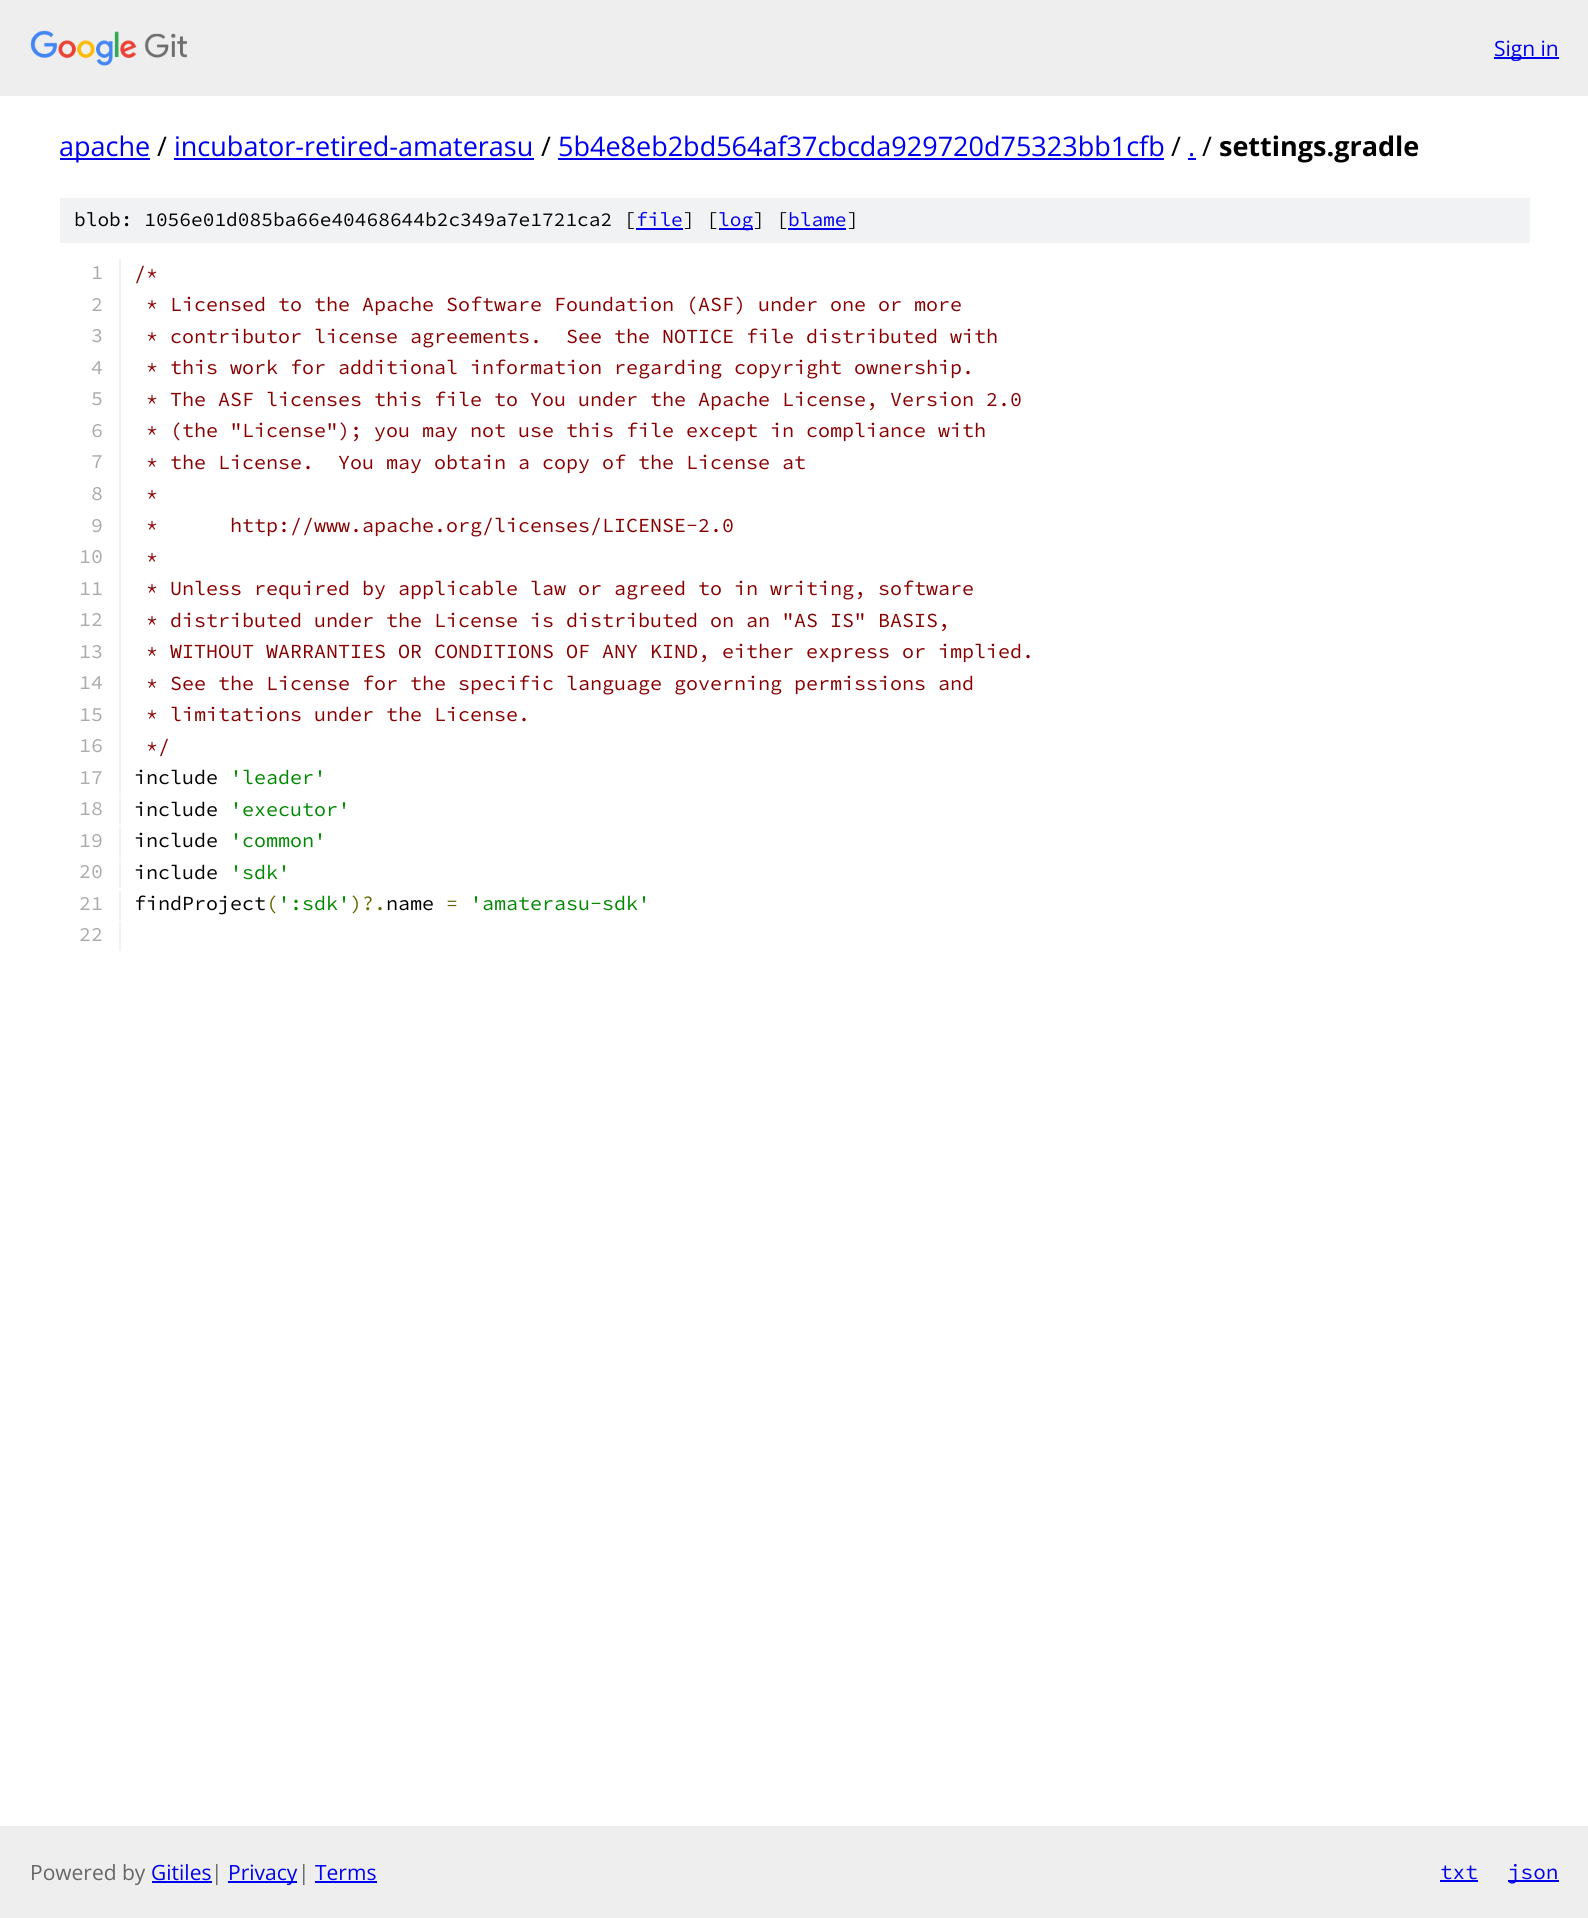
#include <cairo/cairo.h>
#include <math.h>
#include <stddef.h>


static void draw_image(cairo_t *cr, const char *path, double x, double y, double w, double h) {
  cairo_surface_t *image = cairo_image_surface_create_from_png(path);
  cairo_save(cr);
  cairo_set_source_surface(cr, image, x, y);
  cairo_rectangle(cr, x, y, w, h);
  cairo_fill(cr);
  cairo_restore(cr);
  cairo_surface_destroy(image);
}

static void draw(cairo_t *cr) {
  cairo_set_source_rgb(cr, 1, 1, 1);
  cairo_paint(cr);
  cairo_set_source_rgb(cr, 238 / 255.0, 238 / 255.0, 238 / 255.0);
  cairo_rectangle(cr, 0, 0, 1588, 96);
  cairo_fill(cr);
  draw_image(cr, "images/1.png", 30, 30, 157, 36);
  cairo_set_source_rgb(cr, 0, 0, 238 / 255.0);
  cairo_rectangle(cr, 1494, 57, 65, 2);
  cairo_fill(cr);
  cairo_rectangle(cr, 60, 158, 90, 2);
  cairo_fill(cr);
  cairo_rectangle(cr, 174, 158, 360, 2);
  cairo_fill(cr);
  cairo_rectangle(cr, 558, 158, 606, 2);
  cairo_fill(cr);
  cairo_rectangle(cr, 1188, 158, 8, 2);
  cairo_fill(cr);
  cairo_set_source_rgb(cr, 241 / 255.0, 242 / 255.0, 243 / 255.0);
  cairo_rectangle(cr, 60, 198, 1470, 45);
  cairo_fill(cr);
  cairo_set_source_rgb(cr, 0, 0, 238 / 255.0);
  cairo_rectangle(cr, 636, 228, 47, 2);
  cairo_fill(cr);
  cairo_rectangle(cr, 719, 228, 34, 2);
  cairo_fill(cr);
  cairo_rectangle(cr, 788, 228, 58, 2);
  cairo_fill(cr);
  cairo_set_source_rgb(cr, 241 / 255.0, 242 / 255.0, 243 / 255.0);
  cairo_rectangle(cr, 119, 258, 2, 536);
  cairo_fill(cr);
  cairo_rectangle(cr, 119, 795, 2, 30);
  cairo_fill(cr);
  cairo_rectangle(cr, 119, 827, 2, 30);
  cairo_fill(cr);
  cairo_rectangle(cr, 119, 858, 2, 30);
  cairo_fill(cr);
  cairo_rectangle(cr, 119, 890, 2, 30);
  cairo_fill(cr);
  cairo_rectangle(cr, 119, 921, 2, 30);
  cairo_fill(cr);
  cairo_set_source_rgb(cr, 238 / 255.0, 238 / 255.0, 238 / 255.0);
  cairo_rectangle(cr, 0, 1826, 1588, 92);
  cairo_fill(cr);
  cairo_set_source_rgb(cr, 0, 0, 238 / 255.0);
  cairo_rectangle(cr, 152, 1881, 60, 2);
  cairo_fill(cr);
  cairo_rectangle(cr, 228, 1881, 69, 2);
  cairo_fill(cr);
  cairo_rectangle(cr, 315, 1881, 62, 2);
  cairo_fill(cr);
  cairo_rectangle(cr, 1440, 1880, 38, 2);
  cairo_fill(cr);
  cairo_rectangle(cr, 1508, 1880, 51, 2);
  cairo_fill(cr);
  cairo_select_font_face(cr, "Open Sans", CAIRO_FONT_SLANT_NORMAL, CAIRO_FONT_WEIGHT_NORMAL);
  cairo_set_font_size(cr, 21);
  cairo_move_to(cr, 1494, 56);
  cairo_show_text(cr, "Sign in");
  cairo_set_font_size(cr, 27);
  cairo_move_to(cr, 59, 156);
  cairo_show_text(cr, "apache");
  cairo_set_source_rgb(cr, 0, 0, 0);
  cairo_move_to(cr, 157, 156);
  cairo_show_text(cr, "/");
  cairo_set_source_rgb(cr, 0, 0, 238 / 255.0);
  cairo_move_to(cr, 174, 156);
  cairo_show_text(cr, "incubator-retired-amaterasu");
  cairo_set_source_rgb(cr, 0, 0, 0);
  cairo_move_to(cr, 541, 156);
  cairo_show_text(cr, "/");
  cairo_set_source_rgb(cr, 0, 0, 238 / 255.0);
  cairo_move_to(cr, 558, 156);
  cairo_show_text(cr, "5b4e8eb2bd564af37cbcda929720d75323bb1cfb");
  cairo_set_source_rgb(cr, 0, 0, 0);
  cairo_move_to(cr, 1171, 156);
  cairo_show_text(cr, "/");
  cairo_set_source_rgb(cr, 0, 0, 238 / 255.0);
  cairo_move_to(cr, 1188, 156);
  cairo_show_text(cr, ".");
  cairo_set_source_rgb(cr, 0, 0, 0);
  cairo_move_to(cr, 1202, 156);
  cairo_show_text(cr, "/");
  cairo_select_font_face(cr, "Open Sans", CAIRO_FONT_SLANT_NORMAL, CAIRO_FONT_WEIGHT_BOLD);
  cairo_move_to(cr, 1219, 156);
  cairo_show_text(cr, "settings.gradle");
  cairo_select_font_face(cr, "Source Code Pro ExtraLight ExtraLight", CAIRO_FONT_SLANT_NORMAL, CAIRO_FONT_WEIGHT_NORMAL);
  cairo_set_font_size(cr, 19.5);
  cairo_move_to(cr, 74, 226);
  cairo_show_text(cr, "blob: 1056e01d085ba66e40468644b2c349a7e1721ca2 [");
  cairo_set_source_rgb(cr, 0, 0, 238 / 255.0);
  cairo_move_to(cr, 636, 226);
  cairo_show_text(cr, "file");
  cairo_set_source_rgb(cr, 0, 0, 0);
  cairo_move_to(cr, 683, 226);
  cairo_show_text(cr, "] [");
  cairo_set_source_rgb(cr, 0, 0, 238 / 255.0);
  cairo_move_to(cr, 718, 226);
  cairo_show_text(cr, "log");
  cairo_set_source_rgb(cr, 0, 0, 0);
  cairo_move_to(cr, 753, 226);
  cairo_show_text(cr, "] [");
  cairo_set_source_rgb(cr, 0, 0, 238 / 255.0);
  cairo_move_to(cr, 788, 226);
  cairo_show_text(cr, "blame");
  cairo_set_source_rgb(cr, 0, 0, 0);
  cairo_move_to(cr, 847, 226);
  cairo_show_text(cr, "]");
  cairo_set_font_size(cr, 20);
  cairo_set_source_rgb(cr, 170 / 255.0, 170 / 255.0, 170 / 255.0);
  cairo_move_to(cr, 91, 279);
  cairo_show_text(cr, "1");
  cairo_set_source_rgb(cr, 136 / 255.0, 0, 0);
  cairo_move_to(cr, 134, 280);
  cairo_show_text(cr, "/*");
  cairo_set_source_rgb(cr, 170 / 255.0, 170 / 255.0, 170 / 255.0);
  cairo_move_to(cr, 91, 311);
  cairo_show_text(cr, "2");
  cairo_set_source_rgb(cr, 136 / 255.0, 0, 0);
  cairo_move_to(cr, 146, 311);
  cairo_show_text(cr, "* Licensed to the Apache Software Foundation (ASF) under one or more");
  cairo_set_source_rgb(cr, 170 / 255.0, 170 / 255.0, 170 / 255.0);
  cairo_move_to(cr, 91, 342);
  cairo_show_text(cr, "3");
  cairo_set_source_rgb(cr, 136 / 255.0, 0, 0);
  cairo_move_to(cr, 146, 343);
  cairo_show_text(cr, "* contributor license agreements.  See the NOTICE file distributed with");
  cairo_set_source_rgb(cr, 170 / 255.0, 170 / 255.0, 170 / 255.0);
  cairo_move_to(cr, 91, 374);
  cairo_show_text(cr, "4");
  cairo_set_source_rgb(cr, 136 / 255.0, 0, 0);
  cairo_move_to(cr, 146, 374);
  cairo_show_text(cr, "* this work for additional information regarding copyright ownership.");
  cairo_set_source_rgb(cr, 170 / 255.0, 170 / 255.0, 170 / 255.0);
  cairo_move_to(cr, 91, 405);
  cairo_show_text(cr, "5");
  cairo_set_source_rgb(cr, 136 / 255.0, 0, 0);
  cairo_move_to(cr, 146, 406);
  cairo_show_text(cr, "* The ASF licenses this file to You under the Apache License, Version 2.0");
  cairo_set_source_rgb(cr, 170 / 255.0, 170 / 255.0, 170 / 255.0);
  cairo_move_to(cr, 91, 437);
  cairo_show_text(cr, "6");
  cairo_set_source_rgb(cr, 136 / 255.0, 0, 0);
  cairo_move_to(cr, 146, 437);
  cairo_show_text(cr, "* (the \"License\"); you may not use this file except in compliance with");
  cairo_set_source_rgb(cr, 170 / 255.0, 170 / 255.0, 170 / 255.0);
  cairo_move_to(cr, 91, 468);
  cairo_show_text(cr, "7");
  cairo_set_source_rgb(cr, 136 / 255.0, 0, 0);
  cairo_move_to(cr, 146, 469);
  cairo_show_text(cr, "* the License.  You may obtain a copy of the License at");
  cairo_set_source_rgb(cr, 170 / 255.0, 170 / 255.0, 170 / 255.0);
  cairo_move_to(cr, 91, 500);
  cairo_show_text(cr, "8");
  cairo_set_source_rgb(cr, 136 / 255.0, 0, 0);
  cairo_move_to(cr, 146, 501);
  cairo_show_text(cr, "*");
  cairo_set_source_rgb(cr, 170 / 255.0, 170 / 255.0, 170 / 255.0);
  cairo_move_to(cr, 91, 532);
  cairo_show_text(cr, "9");
  cairo_set_source_rgb(cr, 136 / 255.0, 0, 0);
  cairo_move_to(cr, 146, 532);
  cairo_show_text(cr, "*      http://www.apache.org/licenses/LICENSE-2.0");
  cairo_set_source_rgb(cr, 170 / 255.0, 170 / 255.0, 170 / 255.0);
  cairo_move_to(cr, 79, 563);
  cairo_show_text(cr, "10");
  cairo_set_source_rgb(cr, 136 / 255.0, 0, 0);
  cairo_move_to(cr, 146, 564);
  cairo_show_text(cr, "*");
  cairo_set_source_rgb(cr, 170 / 255.0, 170 / 255.0, 170 / 255.0);
  cairo_move_to(cr, 79, 595);
  cairo_show_text(cr, "11");
  cairo_set_source_rgb(cr, 136 / 255.0, 0, 0);
  cairo_move_to(cr, 146, 595);
  cairo_show_text(cr, "* Unless required by applicable law or agreed to in writing, software");
  cairo_set_source_rgb(cr, 170 / 255.0, 170 / 255.0, 170 / 255.0);
  cairo_move_to(cr, 79, 626);
  cairo_show_text(cr, "12");
  cairo_set_source_rgb(cr, 136 / 255.0, 0, 0);
  cairo_move_to(cr, 146, 627);
  cairo_show_text(cr, "* distributed under the License is distributed on an \"AS IS\" BASIS,");
  cairo_set_source_rgb(cr, 170 / 255.0, 170 / 255.0, 170 / 255.0);
  cairo_move_to(cr, 79, 658);
  cairo_show_text(cr, "13");
  cairo_set_source_rgb(cr, 136 / 255.0, 0, 0);
  cairo_move_to(cr, 146, 658);
  cairo_show_text(cr, "* WITHOUT WARRANTIES OR CONDITIONS OF ANY KIND, either express or implied.");
  cairo_set_source_rgb(cr, 170 / 255.0, 170 / 255.0, 170 / 255.0);
  cairo_move_to(cr, 79, 689);
  cairo_show_text(cr, "14");
  cairo_set_source_rgb(cr, 136 / 255.0, 0, 0);
  cairo_move_to(cr, 146, 690);
  cairo_show_text(cr, "* See the License for the specific language governing permissions and");
  cairo_set_source_rgb(cr, 170 / 255.0, 170 / 255.0, 170 / 255.0);
  cairo_move_to(cr, 79, 721);
  cairo_show_text(cr, "15");
  cairo_set_source_rgb(cr, 136 / 255.0, 0, 0);
  cairo_move_to(cr, 146, 721);
  cairo_show_text(cr, "* limitations under the License.");
  cairo_set_source_rgb(cr, 170 / 255.0, 170 / 255.0, 170 / 255.0);
  cairo_move_to(cr, 79, 752);
  cairo_show_text(cr, "16");
  cairo_set_source_rgb(cr, 136 / 255.0, 0, 0);
  cairo_move_to(cr, 146, 753);
  cairo_show_text(cr, "*/");
  cairo_set_source_rgb(cr, 170 / 255.0, 170 / 255.0, 170 / 255.0);
  cairo_move_to(cr, 79, 784);
  cairo_show_text(cr, "17");
  cairo_set_source_rgb(cr, 0, 0, 0);
  cairo_move_to(cr, 134, 784);
  cairo_show_text(cr, "include");
  cairo_set_source_rgb(cr, 0, 136 / 255.0, 0);
  cairo_move_to(cr, 230, 784);
  cairo_show_text(cr, "'leader'");
  cairo_set_source_rgb(cr, 170 / 255.0, 170 / 255.0, 170 / 255.0);
  cairo_move_to(cr, 79, 815);
  cairo_show_text(cr, "18");
  cairo_set_source_rgb(cr, 0, 0, 0);
  cairo_move_to(cr, 134, 816);
  cairo_show_text(cr, "include");
  cairo_set_source_rgb(cr, 0, 136 / 255.0, 0);
  cairo_move_to(cr, 230, 816);
  cairo_show_text(cr, "'executor'");
  cairo_set_source_rgb(cr, 170 / 255.0, 170 / 255.0, 170 / 255.0);
  cairo_move_to(cr, 79, 847);
  cairo_show_text(cr, "19");
  cairo_set_source_rgb(cr, 0, 0, 0);
  cairo_move_to(cr, 134, 847);
  cairo_show_text(cr, "include");
  cairo_set_source_rgb(cr, 0, 136 / 255.0, 0);
  cairo_move_to(cr, 230, 847);
  cairo_show_text(cr, "'common'");
  cairo_set_source_rgb(cr, 170 / 255.0, 170 / 255.0, 170 / 255.0);
  cairo_move_to(cr, 79, 878);
  cairo_show_text(cr, "20");
  cairo_set_source_rgb(cr, 0, 0, 0);
  cairo_move_to(cr, 134, 879);
  cairo_show_text(cr, "include");
  cairo_set_source_rgb(cr, 0, 136 / 255.0, 0);
  cairo_move_to(cr, 230, 879);
  cairo_show_text(cr, "'sdk'");
  cairo_set_source_rgb(cr, 170 / 255.0, 170 / 255.0, 170 / 255.0);
  cairo_move_to(cr, 79, 910);
  cairo_show_text(cr, "21");
  cairo_set_source_rgb(cr, 0, 0, 0);
  cairo_move_to(cr, 134, 910);
  cairo_show_text(cr, "findProject");
  cairo_set_source_rgb(cr, 102 / 255.0, 102 / 255.0, 0);
  cairo_move_to(cr, 266, 910);
  cairo_show_text(cr, "(");
  cairo_set_source_rgb(cr, 0, 136 / 255.0, 0);
  cairo_move_to(cr, 278, 910);
  cairo_show_text(cr, "':sdk'");
  cairo_set_source_rgb(cr, 102 / 255.0, 102 / 255.0, 0);
  cairo_move_to(cr, 350, 910);
  cairo_show_text(cr, ")?.");
  cairo_set_source_rgb(cr, 0, 0, 0);
  cairo_move_to(cr, 386, 910);
  cairo_show_text(cr, "name");
  cairo_set_source_rgb(cr, 102 / 255.0, 102 / 255.0, 0);
  cairo_move_to(cr, 446, 910);
  cairo_show_text(cr, "=");
  cairo_set_source_rgb(cr, 0, 136 / 255.0, 0);
  cairo_move_to(cr, 470, 910);
  cairo_show_text(cr, "'amaterasu-sdk'");
  cairo_set_source_rgb(cr, 170 / 255.0, 170 / 255.0, 170 / 255.0);
  cairo_move_to(cr, 79, 941);
  cairo_show_text(cr, "22");
  cairo_select_font_face(cr, "Open Sans", CAIRO_FONT_SLANT_NORMAL, CAIRO_FONT_WEIGHT_NORMAL);
  cairo_set_font_size(cr, 21);
  cairo_set_source_rgb(cr, 102 / 255.0, 102 / 255.0, 102 / 255.0);
  cairo_move_to(cr, 30, 1880);
  cairo_show_text(cr, "Powered by");
  cairo_set_source_rgb(cr, 0, 0, 238 / 255.0);
  cairo_move_to(cr, 151, 1880);
  cairo_show_text(cr, "Gitiles");
  cairo_set_source_rgb(cr, 102 / 255.0, 102 / 255.0, 102 / 255.0);
  cairo_move_to(cr, 211, 1880);
  cairo_show_text(cr, "|");
  cairo_set_source_rgb(cr, 0, 0, 238 / 255.0);
  cairo_move_to(cr, 228, 1880);
  cairo_show_text(cr, "Privacy");
  cairo_set_source_rgb(cr, 102 / 255.0, 102 / 255.0, 102 / 255.0);
  cairo_move_to(cr, 298, 1880);
  cairo_show_text(cr, "|");
  cairo_set_source_rgb(cr, 0, 0, 238 / 255.0);
  cairo_move_to(cr, 315, 1880);
  cairo_show_text(cr, "Terms");
  cairo_select_font_face(cr, "Source Code Pro ExtraLight ExtraLight", CAIRO_FONT_SLANT_NORMAL, CAIRO_FONT_WEIGHT_NORMAL);
  cairo_move_to(cr, 1440, 1879);
  cairo_show_text(cr, "txt");
  cairo_move_to(cr, 1508, 1879);
  cairo_show_text(cr, "json");
}

int main(void) {
  cairo_surface_t *surface = cairo_image_surface_create(CAIRO_FORMAT_RGB24, 1588, 1918);
  cairo_t *cr = cairo_create(surface);
  cairo_font_options_t *options = cairo_font_options_create();
  cairo_font_options_set_hint_metrics(options, CAIRO_HINT_METRICS_OFF);
  cairo_font_options_set_hint_style(options, CAIRO_HINT_STYLE_NONE);
  cairo_set_font_options(cr, options);
  cairo_set_miter_limit(cr, 4);
  draw(cr);
  cairo_surface_write_to_png(surface, "out.png");
  cairo_font_options_destroy(options);
  cairo_destroy(cr);
  cairo_surface_destroy(surface);
  return 0;
}
